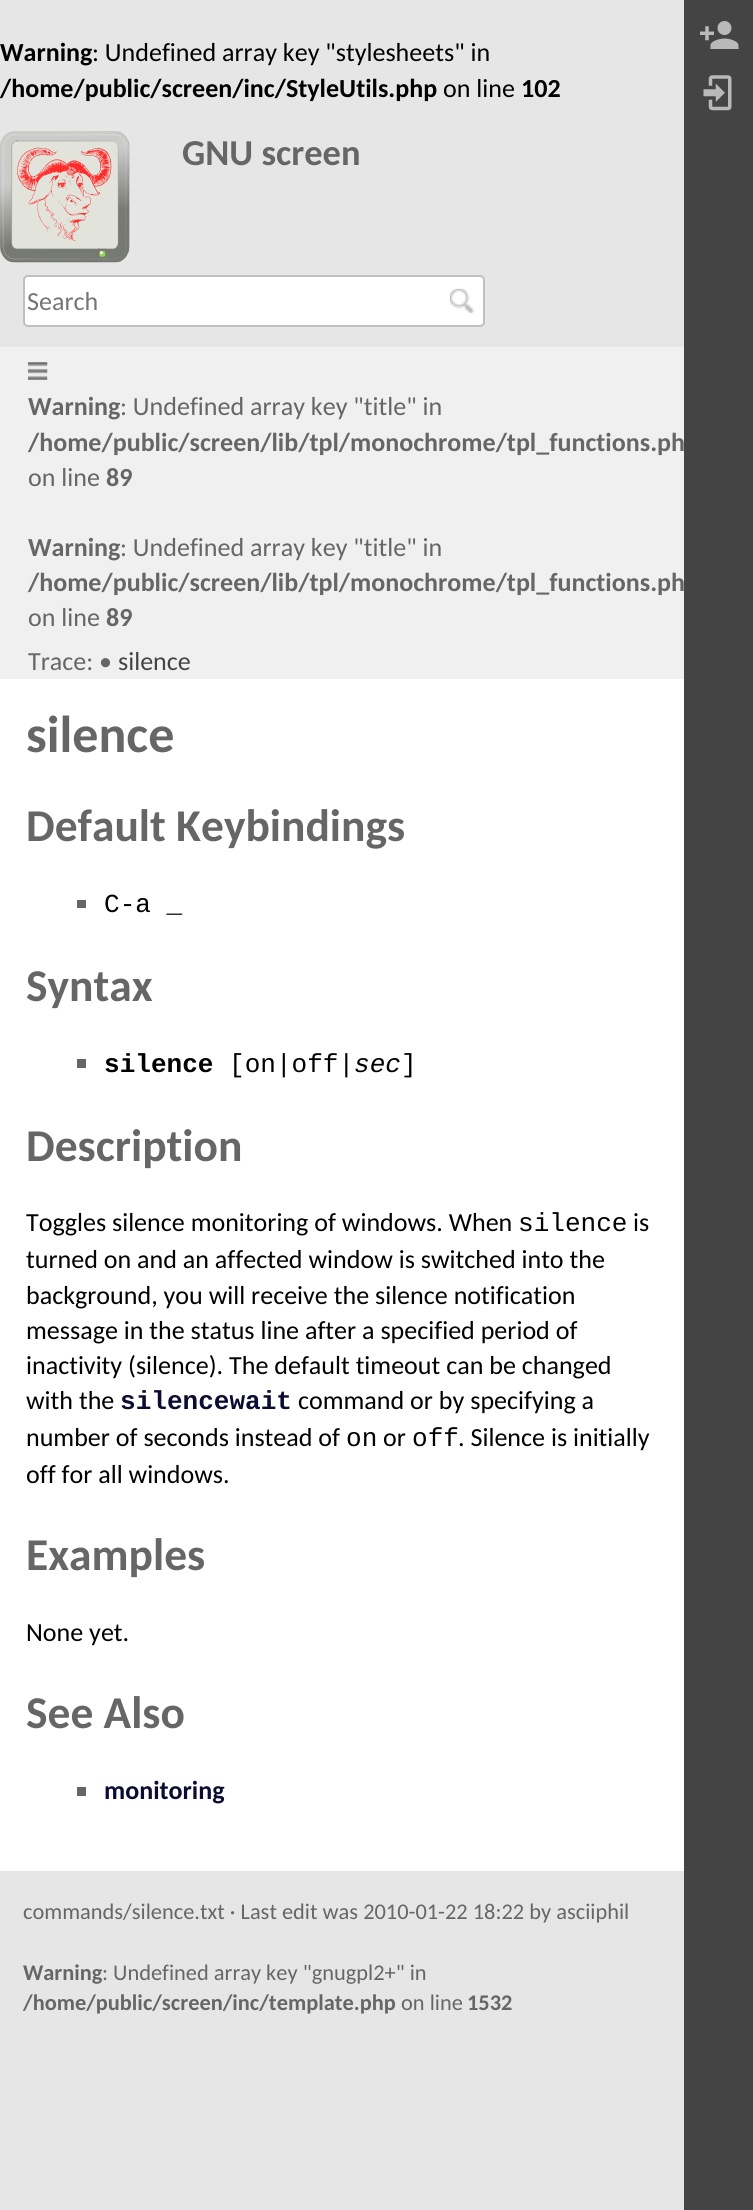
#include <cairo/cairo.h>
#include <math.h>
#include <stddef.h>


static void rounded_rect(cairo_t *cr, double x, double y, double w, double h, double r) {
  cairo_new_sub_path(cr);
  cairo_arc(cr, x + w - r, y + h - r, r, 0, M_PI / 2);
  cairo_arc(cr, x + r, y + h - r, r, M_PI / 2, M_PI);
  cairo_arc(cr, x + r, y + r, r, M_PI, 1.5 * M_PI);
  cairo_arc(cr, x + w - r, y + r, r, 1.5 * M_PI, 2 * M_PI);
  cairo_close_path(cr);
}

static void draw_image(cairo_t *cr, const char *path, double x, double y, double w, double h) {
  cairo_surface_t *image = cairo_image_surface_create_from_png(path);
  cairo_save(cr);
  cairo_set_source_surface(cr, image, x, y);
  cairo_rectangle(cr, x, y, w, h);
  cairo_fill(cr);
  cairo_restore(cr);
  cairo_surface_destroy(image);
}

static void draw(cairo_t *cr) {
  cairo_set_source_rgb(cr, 230 / 255.0, 230 / 255.0, 230 / 255.0);
  cairo_paint(cr);
  draw_image(cr, "images/1.png", 0, 131, 130, 132);
  cairo_set_source_rgb(cr, 1, 1, 1);
  rounded_rect(cr, 24, 276, 460, 50, 4);
  cairo_fill_preserve(cr);
  cairo_set_source_rgb(cr, 192 / 255.0, 192 / 255.0, 192 / 255.0);
  cairo_stroke(cr);
  draw_image(cr, "images/2.png", 449, 288, 26, 26);
  cairo_set_source_rgb(cr, 240 / 255.0, 240 / 255.0, 240 / 255.0);
  cairo_rectangle(cr, 0, 347, 684, 332);
  cairo_fill(cr);
  draw_image(cr, "images/3.png", 28, 362, 20, 18);
  cairo_set_source_rgb(cr, 1, 1, 1);
  cairo_rectangle(cr, 0, 679, 684, 1192);
  cairo_fill(cr);
  cairo_set_source_rgb(cr, 102 / 255.0, 102 / 255.0, 102 / 255.0);
  cairo_rectangle(cr, 77, 900, 9, 8);
  cairo_fill(cr);
  cairo_rectangle(cr, 77, 1059, 9, 9);
  cairo_fill(cr);
  cairo_rectangle(cr, 77, 1787, 9, 9);
  cairo_fill(cr);
  cairo_set_source_rgb(cr, 68 / 255.0, 68 / 255.0, 68 / 255.0);
  cairo_rectangle(cr, 684, 0, 69, 2210);
  cairo_fill(cr);
  draw_image(cr, "images/4.png", 700, 21, 39, 28);
  draw_image(cr, "images/5.png", 703, 75, 29, 36);
  cairo_select_font_face(cr, "Carlito", CAIRO_FONT_SLANT_NORMAL, CAIRO_FONT_WEIGHT_BOLD);
  cairo_set_font_size(cr, 26.05);
  cairo_set_source_rgb(cr, 0, 0, 0);
  cairo_move_to(cr, 0, 61);
  cairo_show_text(cr, "Warning");
  cairo_select_font_face(cr, "Carlito", CAIRO_FONT_SLANT_NORMAL, CAIRO_FONT_WEIGHT_NORMAL);
  cairo_move_to(cr, 92, 61);
  cairo_show_text(cr, ": Undefined array key \"stylesheets\" in");
  cairo_select_font_face(cr, "Carlito", CAIRO_FONT_SLANT_NORMAL, CAIRO_FONT_WEIGHT_BOLD);
  cairo_move_to(cr, 0, 97);
  cairo_show_text(cr, "/home/public/screen/inc/StyleUtils.php");
  cairo_select_font_face(cr, "Carlito", CAIRO_FONT_SLANT_NORMAL, CAIRO_FONT_WEIGHT_NORMAL);
  cairo_move_to(cr, 443, 97);
  cairo_show_text(cr, "on line");
  cairo_select_font_face(cr, "Carlito", CAIRO_FONT_SLANT_NORMAL, CAIRO_FONT_WEIGHT_BOLD);
  cairo_move_to(cr, 521, 97);
  cairo_show_text(cr, "102");
  cairo_set_font_size(cr, 36.5);
  cairo_set_source_rgb(cr, 102 / 255.0, 102 / 255.0, 102 / 255.0);
  cairo_move_to(cr, 182, 165);
  cairo_show_text(cr, "GNU screen");
  cairo_select_font_face(cr, "Carlito", CAIRO_FONT_SLANT_NORMAL, CAIRO_FONT_WEIGHT_NORMAL);
  cairo_set_font_size(cr, 26.05);
  cairo_set_source_rgb(cr, 117 / 255.0, 117 / 255.0, 117 / 255.0);
  cairo_move_to(cr, 27, 310);
  cairo_show_text(cr, "Search");
  cairo_select_font_face(cr, "Carlito", CAIRO_FONT_SLANT_NORMAL, CAIRO_FONT_WEIGHT_BOLD);
  cairo_set_source_rgb(cr, 102 / 255.0, 102 / 255.0, 102 / 255.0);
  cairo_move_to(cr, 28, 415);
  cairo_show_text(cr, "Warning");
  cairo_select_font_face(cr, "Carlito", CAIRO_FONT_SLANT_NORMAL, CAIRO_FONT_WEIGHT_NORMAL);
  cairo_move_to(cr, 120, 415);
  cairo_show_text(cr, ": Undefined array key \"title\" in");
  cairo_select_font_face(cr, "Carlito", CAIRO_FONT_SLANT_NORMAL, CAIRO_FONT_WEIGHT_BOLD);
  cairo_move_to(cr, 28, 451);
  cairo_show_text(cr, "/home/public/screen/lib/tpl/monochrome/tpl_functions.ph");
  cairo_select_font_face(cr, "Carlito", CAIRO_FONT_SLANT_NORMAL, CAIRO_FONT_WEIGHT_NORMAL);
  cairo_move_to(cr, 28, 486);
  cairo_show_text(cr, "on line");
  cairo_select_font_face(cr, "Carlito", CAIRO_FONT_SLANT_NORMAL, CAIRO_FONT_WEIGHT_BOLD);
  cairo_move_to(cr, 106, 486);
  cairo_show_text(cr, "89");
  cairo_move_to(cr, 28, 556);
  cairo_show_text(cr, "Warning");
  cairo_select_font_face(cr, "Carlito", CAIRO_FONT_SLANT_NORMAL, CAIRO_FONT_WEIGHT_NORMAL);
  cairo_move_to(cr, 120, 556);
  cairo_show_text(cr, ": Undefined array key \"title\" in");
  cairo_select_font_face(cr, "Carlito", CAIRO_FONT_SLANT_NORMAL, CAIRO_FONT_WEIGHT_BOLD);
  cairo_move_to(cr, 28, 591);
  cairo_show_text(cr, "/home/public/screen/lib/tpl/monochrome/tpl_functions.ph");
  cairo_select_font_face(cr, "Carlito", CAIRO_FONT_SLANT_NORMAL, CAIRO_FONT_WEIGHT_NORMAL);
  cairo_move_to(cr, 28, 626);
  cairo_show_text(cr, "on line");
  cairo_select_font_face(cr, "Carlito", CAIRO_FONT_SLANT_NORMAL, CAIRO_FONT_WEIGHT_BOLD);
  cairo_move_to(cr, 106, 626);
  cairo_show_text(cr, "89");
  cairo_select_font_face(cr, "Carlito", CAIRO_FONT_SLANT_NORMAL, CAIRO_FONT_WEIGHT_NORMAL);
  cairo_move_to(cr, 28, 670);
  cairo_show_text(cr, "Trace: •");
  cairo_set_source_rgb(cr, 68 / 255.0, 68 / 255.0, 68 / 255.0);
  cairo_move_to(cr, 118, 670);
  cairo_show_text(cr, "silence");
  cairo_select_font_face(cr, "Carlito", CAIRO_FONT_SLANT_NORMAL, CAIRO_FONT_WEIGHT_BOLD);
  cairo_set_font_size(cr, 52);
  cairo_set_source_rgb(cr, 102 / 255.0, 102 / 255.0, 102 / 255.0);
  cairo_move_to(cr, 26, 752);
  cairo_show_text(cr, "silence");
  cairo_set_font_size(cr, 45.5);
  cairo_move_to(cr, 26, 841);
  cairo_show_text(cr, "Default Keybindings");
  cairo_select_font_face(cr, "Liberation Mono", CAIRO_FONT_SLANT_NORMAL, CAIRO_FONT_WEIGHT_NORMAL);
  cairo_set_font_size(cr, 26.05);
  cairo_set_source_rgb(cr, 0, 0, 0);
  cairo_move_to(cr, 104, 912);
  cairo_show_text(cr, "C-a _");
  cairo_select_font_face(cr, "Carlito", CAIRO_FONT_SLANT_NORMAL, CAIRO_FONT_WEIGHT_BOLD);
  cairo_set_font_size(cr, 45.5);
  cairo_set_source_rgb(cr, 102 / 255.0, 102 / 255.0, 102 / 255.0);
  cairo_move_to(cr, 26, 1001);
  cairo_show_text(cr, "Syntax");
  cairo_select_font_face(cr, "Liberation Mono", CAIRO_FONT_SLANT_NORMAL, CAIRO_FONT_WEIGHT_BOLD);
  cairo_set_font_size(cr, 26.05);
  cairo_set_source_rgb(cr, 0, 0, 0);
  cairo_move_to(cr, 104, 1072);
  cairo_show_text(cr, "silence");
  cairo_select_font_face(cr, "Liberation Mono", CAIRO_FONT_SLANT_NORMAL, CAIRO_FONT_WEIGHT_NORMAL);
  cairo_move_to(cr, 229, 1072);
  cairo_show_text(cr, "[on|off|");
  cairo_select_font_face(cr, "Liberation Mono", CAIRO_FONT_SLANT_ITALIC, CAIRO_FONT_WEIGHT_NORMAL);
  cairo_move_to(cr, 354, 1072);
  cairo_show_text(cr, "sec");
  cairo_select_font_face(cr, "Liberation Mono", CAIRO_FONT_SLANT_NORMAL, CAIRO_FONT_WEIGHT_NORMAL);
  cairo_move_to(cr, 401, 1072);
  cairo_show_text(cr, "]");
  cairo_select_font_face(cr, "Carlito", CAIRO_FONT_SLANT_NORMAL, CAIRO_FONT_WEIGHT_BOLD);
  cairo_set_font_size(cr, 45.5);
  cairo_set_source_rgb(cr, 102 / 255.0, 102 / 255.0, 102 / 255.0);
  cairo_move_to(cr, 26, 1161);
  cairo_show_text(cr, "Description");
  cairo_select_font_face(cr, "Carlito", CAIRO_FONT_SLANT_NORMAL, CAIRO_FONT_WEIGHT_NORMAL);
  cairo_set_font_size(cr, 26.05);
  cairo_set_source_rgb(cr, 0, 0, 0);
  cairo_move_to(cr, 26, 1231);
  cairo_show_text(cr, "Toggles silence monitoring of windows. When");
  cairo_select_font_face(cr, "Liberation Mono", CAIRO_FONT_SLANT_NORMAL, CAIRO_FONT_WEIGHT_NORMAL);
  cairo_move_to(cr, 518, 1231);
  cairo_show_text(cr, "silence");
  cairo_select_font_face(cr, "Carlito", CAIRO_FONT_SLANT_NORMAL, CAIRO_FONT_WEIGHT_NORMAL);
  cairo_move_to(cr, 633, 1231);
  cairo_show_text(cr, "is");
  cairo_move_to(cr, 26, 1268);
  cairo_show_text(cr, "turned on and an affected window is switched into the");
  cairo_move_to(cr, 26, 1304);
  cairo_show_text(cr, "background, you will receive the silence notification");
  cairo_move_to(cr, 26, 1339);
  cairo_show_text(cr, "message in the status line after a specified period of");
  cairo_move_to(cr, 26, 1374);
  cairo_show_text(cr, "inactivity (silence). The default timeout can be changed");
  cairo_move_to(cr, 26, 1409);
  cairo_show_text(cr, "with the");
  cairo_select_font_face(cr, "Liberation Mono", CAIRO_FONT_SLANT_NORMAL, CAIRO_FONT_WEIGHT_BOLD);
  cairo_set_source_rgb(cr, 12 / 255.0, 12 / 255.0, 51 / 255.0);
  cairo_move_to(cr, 120, 1409);
  cairo_show_text(cr, "silencewait");
  cairo_select_font_face(cr, "Carlito", CAIRO_FONT_SLANT_NORMAL, CAIRO_FONT_WEIGHT_NORMAL);
  cairo_set_source_rgb(cr, 0, 0, 0);
  cairo_move_to(cr, 298, 1409);
  cairo_show_text(cr, "command or by specifying a");
  cairo_move_to(cr, 26, 1446);
  cairo_show_text(cr, "number of seconds instead of");
  cairo_select_font_face(cr, "Liberation Mono", CAIRO_FONT_SLANT_NORMAL, CAIRO_FONT_WEIGHT_NORMAL);
  cairo_move_to(cr, 346, 1446);
  cairo_show_text(cr, "on");
  cairo_select_font_face(cr, "Carlito", CAIRO_FONT_SLANT_NORMAL, CAIRO_FONT_WEIGHT_NORMAL);
  cairo_move_to(cr, 383, 1446);
  cairo_show_text(cr, "or");
  cairo_select_font_face(cr, "Liberation Mono", CAIRO_FONT_SLANT_NORMAL, CAIRO_FONT_WEIGHT_NORMAL);
  cairo_move_to(cr, 412, 1446);
  cairo_show_text(cr, "off");
  cairo_select_font_face(cr, "Carlito", CAIRO_FONT_SLANT_NORMAL, CAIRO_FONT_WEIGHT_NORMAL);
  cairo_move_to(cr, 458, 1446);
  cairo_show_text(cr, ". Silence is initially");
  cairo_move_to(cr, 26, 1483);
  cairo_show_text(cr, "off for all windows.");
  cairo_select_font_face(cr, "Carlito", CAIRO_FONT_SLANT_NORMAL, CAIRO_FONT_WEIGHT_BOLD);
  cairo_set_font_size(cr, 45.5);
  cairo_set_source_rgb(cr, 102 / 255.0, 102 / 255.0, 102 / 255.0);
  cairo_move_to(cr, 26, 1570);
  cairo_show_text(cr, "Examples");
  cairo_select_font_face(cr, "Carlito", CAIRO_FONT_SLANT_NORMAL, CAIRO_FONT_WEIGHT_NORMAL);
  cairo_set_font_size(cr, 26.05);
  cairo_set_source_rgb(cr, 0, 0, 0);
  cairo_move_to(cr, 26, 1641);
  cairo_show_text(cr, "None yet.");
  cairo_select_font_face(cr, "Carlito", CAIRO_FONT_SLANT_NORMAL, CAIRO_FONT_WEIGHT_BOLD);
  cairo_set_font_size(cr, 45.5);
  cairo_set_source_rgb(cr, 102 / 255.0, 102 / 255.0, 102 / 255.0);
  cairo_move_to(cr, 26, 1728);
  cairo_show_text(cr, "See Also");
  cairo_set_font_size(cr, 26.05);
  cairo_set_source_rgb(cr, 12 / 255.0, 12 / 255.0, 51 / 255.0);
  cairo_move_to(cr, 104, 1799);
  cairo_show_text(cr, "monitoring");
  cairo_select_font_face(cr, "Carlito", CAIRO_FONT_SLANT_NORMAL, CAIRO_FONT_WEIGHT_NORMAL);
  cairo_set_font_size(cr, 22.4);
  cairo_set_source_rgb(cr, 102 / 255.0, 102 / 255.0, 102 / 255.0);
  cairo_move_to(cr, 23, 1919);
  cairo_show_text(cr, "commands/silence.txt · Last edit was 2010-01-22 18:22 by asciiphil");
  cairo_select_font_face(cr, "Carlito", CAIRO_FONT_SLANT_NORMAL, CAIRO_FONT_WEIGHT_BOLD);
  cairo_move_to(cr, 23, 1980);
  cairo_show_text(cr, "Warning");
  cairo_select_font_face(cr, "Carlito", CAIRO_FONT_SLANT_NORMAL, CAIRO_FONT_WEIGHT_NORMAL);
  cairo_move_to(cr, 102, 1980);
  cairo_show_text(cr, ": Undefined array key \"gnugpl2+\" in");
  cairo_select_font_face(cr, "Carlito", CAIRO_FONT_SLANT_NORMAL, CAIRO_FONT_WEIGHT_BOLD);
  cairo_move_to(cr, 23, 2010);
  cairo_show_text(cr, "/home/public/screen/inc/template.php");
  cairo_select_font_face(cr, "Carlito", CAIRO_FONT_SLANT_NORMAL, CAIRO_FONT_WEIGHT_NORMAL);
  cairo_move_to(cr, 401, 2010);
  cairo_show_text(cr, "on line");
  cairo_select_font_face(cr, "Carlito", CAIRO_FONT_SLANT_NORMAL, CAIRO_FONT_WEIGHT_BOLD);
  cairo_move_to(cr, 467, 2010);
  cairo_show_text(cr, "1532");
}

int main(void) {
  cairo_surface_t *surface = cairo_image_surface_create(CAIRO_FORMAT_RGB24, 753, 2210);
  cairo_t *cr = cairo_create(surface);
  cairo_font_options_t *options = cairo_font_options_create();
  cairo_font_options_set_hint_metrics(options, CAIRO_HINT_METRICS_OFF);
  cairo_font_options_set_hint_style(options, CAIRO_HINT_STYLE_NONE);
  cairo_set_font_options(cr, options);
  cairo_set_miter_limit(cr, 4);
  draw(cr);
  cairo_surface_write_to_png(surface, "out.png");
  cairo_font_options_destroy(options);
  cairo_destroy(cr);
  cairo_surface_destroy(surface);
  return 0;
}
